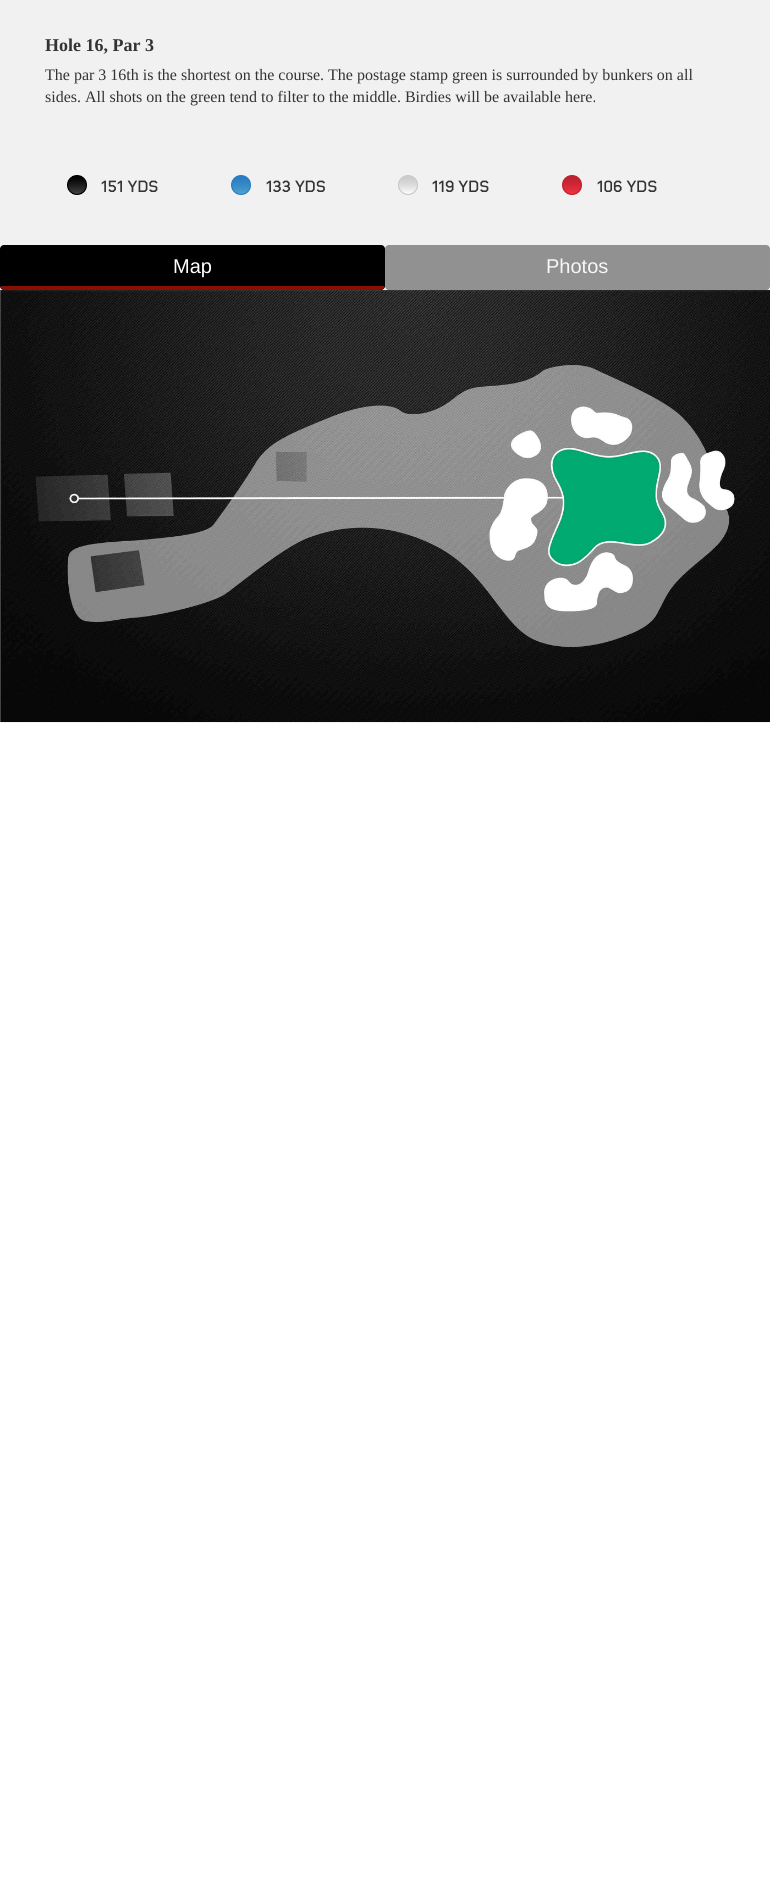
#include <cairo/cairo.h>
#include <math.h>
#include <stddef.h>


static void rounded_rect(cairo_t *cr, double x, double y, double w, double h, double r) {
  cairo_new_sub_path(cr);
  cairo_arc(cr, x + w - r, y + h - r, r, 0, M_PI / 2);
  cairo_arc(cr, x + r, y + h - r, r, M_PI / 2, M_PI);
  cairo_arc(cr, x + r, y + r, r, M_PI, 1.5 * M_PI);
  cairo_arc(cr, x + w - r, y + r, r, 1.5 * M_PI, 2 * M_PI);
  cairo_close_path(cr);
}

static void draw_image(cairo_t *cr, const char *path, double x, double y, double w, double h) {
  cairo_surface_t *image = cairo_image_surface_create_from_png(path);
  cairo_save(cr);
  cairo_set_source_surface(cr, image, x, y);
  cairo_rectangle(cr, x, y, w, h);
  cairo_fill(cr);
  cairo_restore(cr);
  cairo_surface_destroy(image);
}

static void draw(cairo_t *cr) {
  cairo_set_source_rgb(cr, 1, 1, 1);
  cairo_paint(cr);
  cairo_set_source_rgb(cr, 241 / 255.0, 241 / 255.0, 241 / 255.0);
  cairo_rectangle(cr, 0, 0, 770, 723);
  cairo_fill(cr);
  draw_image(cr, "images/1.png", 67, 175, 20, 20);
  draw_image(cr, "images/2.png", 231, 175, 20, 20);
  draw_image(cr, "images/3.png", 398, 175, 20, 20);
  draw_image(cr, "images/4.png", 562, 175, 20, 20);
  cairo_set_source_rgb(cr, 0, 0, 0);
  rounded_rect(cr, 0, 245, 385, 45, 4);
  cairo_fill(cr);
  cairo_set_source_rgb(cr, 139 / 255.0, 14 / 255.0, 4 / 255.0);
  cairo_new_path(cr);
  cairo_move_to(cr, 4, 290);
  cairo_line_to(cr, 381, 290);
  cairo_curve_to(cr, 382, 290, 384, 289, 384, 288);
  cairo_line_to(cr, 384, 286);
  cairo_line_to(cr, 1, 286);
  cairo_line_to(cr, 1, 288);
  cairo_curve_to(cr, 1, 289, 3, 290, 4, 290);
  cairo_close_path(cr);
  cairo_fill(cr);
  cairo_set_source_rgb(cr, 145 / 255.0, 145 / 255.0, 145 / 255.0);
  rounded_rect(cr, 385, 245, 385, 45, 4);
  cairo_fill(cr);
  cairo_new_path(cr);
  cairo_move_to(cr, 389, 290);
  cairo_line_to(cr, 766, 290);
  cairo_curve_to(cr, 767, 290, 769, 289, 769, 288);
  cairo_line_to(cr, 769, 286);
  cairo_line_to(cr, 386, 286);
  cairo_line_to(cr, 386, 288);
  cairo_curve_to(cr, 386, 289, 388, 290, 389, 290);
  cairo_close_path(cr);
  cairo_fill(cr);
  draw_image(cr, "images/5.png", 0, 290, 770, 432);
  cairo_select_font_face(cr, "Liberation Serif", CAIRO_FONT_SLANT_NORMAL, CAIRO_FONT_WEIGHT_BOLD);
  cairo_set_font_size(cr, 18);
  cairo_set_source_rgb(cr, 51 / 255.0, 51 / 255.0, 51 / 255.0);
  cairo_move_to(cr, 45, 51);
  cairo_show_text(cr, "Hole 16, Par 3");
  cairo_select_font_face(cr, "Liberation Serif", CAIRO_FONT_SLANT_NORMAL, CAIRO_FONT_WEIGHT_NORMAL);
  cairo_set_font_size(cr, 16);
  cairo_move_to(cr, 45, 80);
  cairo_show_text(cr, "The par 3 16th is the shortest on the course. The postage stamp green is surrounded by bunkers on all");
  cairo_move_to(cr, 45, 102);
  cairo_show_text(cr, "sides. All shots on the green tend to filter to the middle. Birdies will be available here.");
  cairo_select_font_face(cr, "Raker", CAIRO_FONT_SLANT_NORMAL, CAIRO_FONT_WEIGHT_BOLD);
  cairo_move_to(cr, 101, 192);
  cairo_show_text(cr, "151 YDS");
  cairo_move_to(cr, 266, 192);
  cairo_show_text(cr, "133 YDS");
  cairo_move_to(cr, 432, 192);
  cairo_show_text(cr, "119 YDS");
  cairo_move_to(cr, 597, 192);
  cairo_show_text(cr, "106 YDS");
  cairo_select_font_face(cr, "Liberation Sans", CAIRO_FONT_SLANT_NORMAL, CAIRO_FONT_WEIGHT_NORMAL);
  cairo_set_font_size(cr, 20);
  cairo_set_source_rgb(cr, 1, 1, 1);
  cairo_move_to(cr, 173, 273);
  cairo_show_text(cr, "Map");
  cairo_set_source_rgb(cr, 247 / 255.0, 247 / 255.0, 247 / 255.0);
  cairo_move_to(cr, 546, 273);
  cairo_show_text(cr, "Photos");
}

int main(void) {
  cairo_surface_t *surface = cairo_image_surface_create(CAIRO_FORMAT_RGB24, 770, 1879);
  cairo_t *cr = cairo_create(surface);
  cairo_font_options_t *options = cairo_font_options_create();
  cairo_font_options_set_hint_metrics(options, CAIRO_HINT_METRICS_OFF);
  cairo_font_options_set_hint_style(options, CAIRO_HINT_STYLE_NONE);
  cairo_set_font_options(cr, options);
  cairo_set_miter_limit(cr, 4);
  draw(cr);
  cairo_surface_write_to_png(surface, "out.png");
  cairo_font_options_destroy(options);
  cairo_destroy(cr);
  cairo_surface_destroy(surface);
  return 0;
}
